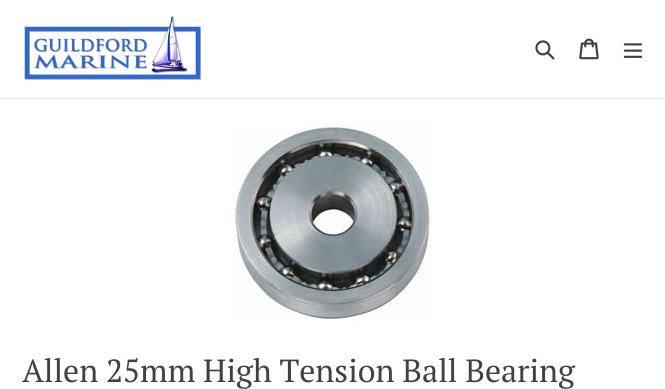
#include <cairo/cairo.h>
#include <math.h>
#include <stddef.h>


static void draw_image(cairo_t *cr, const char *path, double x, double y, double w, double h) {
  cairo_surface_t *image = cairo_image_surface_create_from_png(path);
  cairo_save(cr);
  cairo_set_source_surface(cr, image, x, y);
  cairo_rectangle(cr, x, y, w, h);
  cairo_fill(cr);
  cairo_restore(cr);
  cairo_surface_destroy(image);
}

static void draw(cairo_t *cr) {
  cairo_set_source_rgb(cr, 1, 1, 1);
  cairo_paint(cr);
  cairo_set_source_rgb(cr, 232 / 255.0, 233 / 255.0, 235 / 255.0);
  cairo_rectangle(cr, 0, 98, 665, 1);
  cairo_fill(cr);
  draw_image(cr, "images/1.png", 24, 16, 177, 64);
  draw_image(cr, "images/2.png", 535, 40, 20, 20);
  draw_image(cr, "images/3.png", 579, 38, 20, 22);
  draw_image(cr, "images/4.png", 623, 43, 20, 15);
  draw_image(cr, "images/5.png", 233, 121, 200, 200);
  cairo_select_font_face(cr, "PT Serif", CAIRO_FONT_SLANT_NORMAL, CAIRO_FONT_WEIGHT_NORMAL);
  cairo_set_font_size(cr, 32);
  cairo_set_source_rgb(cr, 61 / 255.0, 66 / 255.0, 70 / 255.0);
  cairo_move_to(cr, 22, 382);
  cairo_show_text(cr, "Allen 25mm High Tension Ball Bearing");
}

int main(void) {
  cairo_surface_t *surface = cairo_image_surface_create(CAIRO_FORMAT_RGB24, 665, 389);
  cairo_t *cr = cairo_create(surface);
  cairo_font_options_t *options = cairo_font_options_create();
  cairo_font_options_set_hint_metrics(options, CAIRO_HINT_METRICS_OFF);
  cairo_font_options_set_hint_style(options, CAIRO_HINT_STYLE_NONE);
  cairo_set_font_options(cr, options);
  cairo_set_miter_limit(cr, 4);
  draw(cr);
  cairo_surface_write_to_png(surface, "out.png");
  cairo_font_options_destroy(options);
  cairo_destroy(cr);
  cairo_surface_destroy(surface);
  return 0;
}
